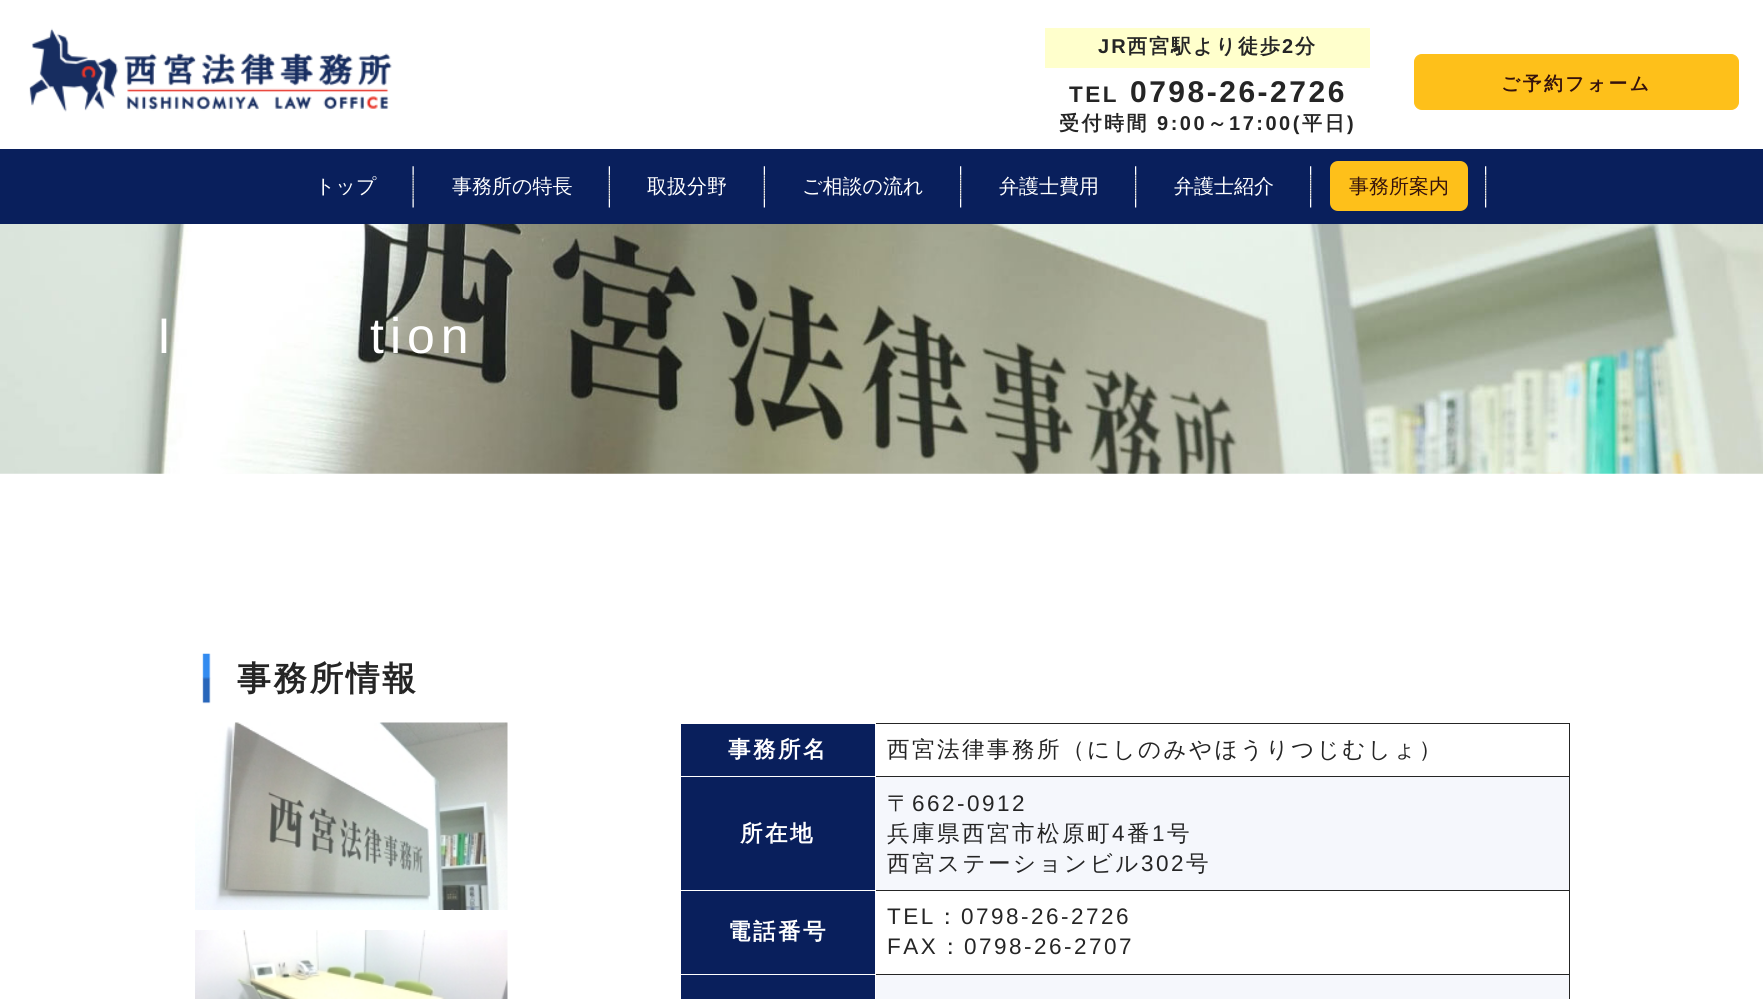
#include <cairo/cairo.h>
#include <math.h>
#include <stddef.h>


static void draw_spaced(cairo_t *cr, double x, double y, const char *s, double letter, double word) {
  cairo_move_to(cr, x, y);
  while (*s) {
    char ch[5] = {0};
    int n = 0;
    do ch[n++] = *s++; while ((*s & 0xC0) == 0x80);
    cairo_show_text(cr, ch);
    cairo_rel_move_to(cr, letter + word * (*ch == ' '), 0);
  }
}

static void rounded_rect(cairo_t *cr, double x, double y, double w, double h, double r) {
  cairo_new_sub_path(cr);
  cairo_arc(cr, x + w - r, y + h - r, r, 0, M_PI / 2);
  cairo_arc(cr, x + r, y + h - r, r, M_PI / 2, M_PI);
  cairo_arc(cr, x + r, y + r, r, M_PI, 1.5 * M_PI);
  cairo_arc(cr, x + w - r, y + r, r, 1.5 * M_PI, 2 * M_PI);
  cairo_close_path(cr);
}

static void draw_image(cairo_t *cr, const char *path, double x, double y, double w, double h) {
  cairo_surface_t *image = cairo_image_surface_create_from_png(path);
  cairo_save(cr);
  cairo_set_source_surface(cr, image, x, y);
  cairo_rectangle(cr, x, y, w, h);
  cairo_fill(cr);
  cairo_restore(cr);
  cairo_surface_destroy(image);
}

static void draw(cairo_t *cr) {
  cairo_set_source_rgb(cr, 1, 1, 1);
  cairo_paint(cr);
  draw_image(cr, "images/1.png", 29, 28, 363, 84);
  cairo_set_source_rgb(cr, 1, 1, 204 / 255.0);
  cairo_rectangle(cr, 1045, 28, 325, 40);
  cairo_fill(cr);
  cairo_set_source_rgb(cr, 254 / 255.0, 192 / 255.0, 26 / 255.0);
  rounded_rect(cr, 1414.5, 54.5, 324, 55, 7.5);
  cairo_fill_preserve(cr);
  cairo_set_line_width(cr, 1);
  cairo_stroke(cr);
  cairo_set_source_rgb(cr, 9 / 255.0, 31 / 255.0, 92 / 255.0);
  cairo_rectangle(cr, 0, 149, 1763, 75);
  cairo_fill(cr);
  draw_image(cr, "images/2.png", 412, 166, 2, 42);
  draw_image(cr, "images/3.png", 608, 166, 2, 42);
  draw_image(cr, "images/3.png", 763, 166, 2, 42);
  draw_image(cr, "images/4.png", 960, 166, 2, 42);
  draw_image(cr, "images/4.png", 1135, 166, 2, 42);
  draw_image(cr, "images/4.png", 1310, 166, 2, 42);
  draw_image(cr, "images/4.png", 1485, 166, 2, 42);
  cairo_set_source_rgb(cr, 254 / 255.0, 192 / 255.0, 26 / 255.0);
  rounded_rect(cr, 1330, 161, 138, 50, 8);
  cairo_fill(cr);
  draw_image(cr, "images/5.png", 0, 224, 1763, 250);
  draw_image(cr, "images/6.png", 202, 653, 9, 51);
  draw_image(cr, "images/7.png", 195, 722, 313, 188);
  draw_image(cr, "images/8.png", 195, 930, 313, 69);
  cairo_set_source_rgb(cr, 9 / 255.0, 31 / 255.0, 92 / 255.0);
  cairo_rectangle(cr, 681, 724, 194, 52);
  cairo_fill(cr);
  cairo_set_source_rgb(cr, 37 / 255.0, 37 / 255.0, 37 / 255.0);
  cairo_rectangle(cr, 875, 723, 695, 1);
  cairo_fill(cr);
  cairo_set_source_rgb(cr, 1, 1, 1);
  cairo_rectangle(cr, 875, 723, 1, 1);
  cairo_fill(cr);
  cairo_set_source_rgb(cr, 37 / 255.0, 37 / 255.0, 37 / 255.0);
  cairo_rectangle(cr, 1569, 776, 1, 223);
  cairo_fill(cr);
  cairo_rectangle(cr, 1569, 723, 1, 55);
  cairo_fill(cr);
  cairo_rectangle(cr, 875, 776, 695, 1);
  cairo_fill(cr);
  cairo_set_source_rgb(cr, 1, 1, 1);
  cairo_rectangle(cr, 875, 776, 1, 2);
  cairo_fill(cr);
  cairo_set_source_rgb(cr, 9 / 255.0, 31 / 255.0, 92 / 255.0);
  cairo_rectangle(cr, 681, 975, 194, 24);
  cairo_fill(cr);
  cairo_set_source_rgb(cr, 245 / 255.0, 247 / 255.0, 252 / 255.0);
  cairo_rectangle(cr, 876, 975, 693, 24);
  cairo_fill(cr);
  cairo_set_source_rgb(cr, 9 / 255.0, 31 / 255.0, 92 / 255.0);
  cairo_rectangle(cr, 681, 777, 194, 113);
  cairo_fill(cr);
  cairo_set_source_rgb(cr, 37 / 255.0, 37 / 255.0, 37 / 255.0);
  cairo_rectangle(cr, 875, 890, 695, 1);
  cairo_fill(cr);
  cairo_set_source_rgb(cr, 1, 1, 1);
  cairo_rectangle(cr, 875, 890, 1, 1);
  cairo_fill(cr);
  cairo_set_source_rgb(cr, 245 / 255.0, 247 / 255.0, 252 / 255.0);
  cairo_rectangle(cr, 876, 777, 693, 113);
  cairo_fill(cr);
  cairo_set_source_rgb(cr, 9 / 255.0, 31 / 255.0, 92 / 255.0);
  cairo_rectangle(cr, 681, 891, 194, 83);
  cairo_fill(cr);
  cairo_set_source_rgb(cr, 37 / 255.0, 37 / 255.0, 37 / 255.0);
  cairo_rectangle(cr, 875, 974, 695, 1);
  cairo_fill(cr);
  cairo_set_source_rgb(cr, 1, 1, 1);
  cairo_rectangle(cr, 875, 974, 1, 1);
  cairo_fill(cr);
  cairo_select_font_face(cr, "Liberation Sans", CAIRO_FONT_SLANT_NORMAL, CAIRO_FONT_WEIGHT_BOLD);
  cairo_set_font_size(cr, 20);
  cairo_set_source_rgb(cr, 37 / 255.0, 37 / 255.0, 37 / 255.0);
  draw_spaced(cr, 1098, 53, "JR", 2, 0);
  cairo_select_font_face(cr, "WenQuanYi Zen Hei", CAIRO_FONT_SLANT_NORMAL, CAIRO_FONT_WEIGHT_BOLD);
  draw_spaced(cr, 1127, 53, "西宮駅より徒歩", 2, 0);
  cairo_select_font_face(cr, "Liberation Sans", CAIRO_FONT_SLANT_NORMAL, CAIRO_FONT_WEIGHT_BOLD);
  draw_spaced(cr, 1282, 53, "2", 2, 0);
  cairo_select_font_face(cr, "WenQuanYi Zen Hei", CAIRO_FONT_SLANT_NORMAL, CAIRO_FONT_WEIGHT_BOLD);
  draw_spaced(cr, 1295, 53, "分", 2, 0);
  cairo_select_font_face(cr, "Liberation Sans", CAIRO_FONT_SLANT_NORMAL, CAIRO_FONT_WEIGHT_BOLD);
  cairo_set_font_size(cr, 22.5);
  draw_spaced(cr, 1069, 102, "TEL", 2.5, 0);
  cairo_set_font_size(cr, 30);
  draw_spaced(cr, 1130, 102, "0798-26-2726", 2.5, 0);
  cairo_select_font_face(cr, "WenQuanYi Zen Hei", CAIRO_FONT_SLANT_NORMAL, CAIRO_FONT_WEIGHT_BOLD);
  cairo_set_font_size(cr, 20);
  draw_spaced(cr, 1059, 130, "受付時間", 2.5, 0);
  cairo_select_font_face(cr, "Liberation Sans", CAIRO_FONT_SLANT_NORMAL, CAIRO_FONT_WEIGHT_BOLD);
  draw_spaced(cr, 1157, 130, "9:00", 2.5, 0);
  cairo_select_font_face(cr, "WenQuanYi Zen Hei", CAIRO_FONT_SLANT_NORMAL, CAIRO_FONT_WEIGHT_BOLD);
  draw_spaced(cr, 1207, 130, "～", 2.5, 0);
  cairo_select_font_face(cr, "Liberation Sans", CAIRO_FONT_SLANT_NORMAL, CAIRO_FONT_WEIGHT_BOLD);
  draw_spaced(cr, 1229, 130, "17:00(", 2.5, 0);
  cairo_select_font_face(cr, "WenQuanYi Zen Hei", CAIRO_FONT_SLANT_NORMAL, CAIRO_FONT_WEIGHT_BOLD);
  draw_spaced(cr, 1302, 130, "平日", 2.5, 0);
  cairo_select_font_face(cr, "Liberation Sans", CAIRO_FONT_SLANT_NORMAL, CAIRO_FONT_WEIGHT_BOLD);
  draw_spaced(cr, 1347, 130, ")", 2.5, 0);
  cairo_select_font_face(cr, "WenQuanYi Zen Hei", CAIRO_FONT_SLANT_NORMAL, CAIRO_FONT_WEIGHT_BOLD);
  cairo_set_font_size(cr, 18.75);
  cairo_set_source_rgb(cr, 53 / 255.0, 18 / 255.0, 12 / 255.0);
  draw_spaced(cr, 1501, 90, "ご予約フォーム", 2.5, 0);
  cairo_select_font_face(cr, "WenQuanYi Zen Hei Medium", CAIRO_FONT_SLANT_NORMAL, CAIRO_FONT_WEIGHT_NORMAL);
  cairo_set_font_size(cr, 20);
  cairo_set_source_rgb(cr, 1, 1, 1);
  cairo_move_to(cr, 315, 193);
  cairo_show_text(cr, "トップ");
  cairo_move_to(cr, 452, 193);
  cairo_show_text(cr, "事務所の特長");
  cairo_move_to(cr, 647, 193);
  cairo_show_text(cr, "取扱分野");
  cairo_move_to(cr, 802, 193);
  cairo_show_text(cr, "ご相談の流れ");
  cairo_move_to(cr, 999, 193);
  cairo_show_text(cr, "弁護士費用");
  cairo_move_to(cr, 1174, 193);
  cairo_show_text(cr, "弁護士紹介");
  cairo_set_source_rgb(cr, 53 / 255.0, 18 / 255.0, 12 / 255.0);
  cairo_move_to(cr, 1349, 193);
  cairo_show_text(cr, "事務所案内");
  cairo_select_font_face(cr, "Liberation Sans", CAIRO_FONT_SLANT_NORMAL, CAIRO_FONT_WEIGHT_NORMAL);
  cairo_set_font_size(cr, 50);
  cairo_set_source_rgb(cr, 1, 1, 1);
  draw_spaced(cr, 157, 353, "I", 6, 0);
  draw_spaced(cr, 370, 353, "tion", 6, 0);
  cairo_select_font_face(cr, "WenQuanYi Zen Hei", CAIRO_FONT_SLANT_NORMAL, CAIRO_FONT_WEIGHT_BOLD);
  cairo_set_font_size(cr, 33.75);
  cairo_set_source_rgb(cr, 37 / 255.0, 37 / 255.0, 37 / 255.0);
  draw_spaced(cr, 237, 690, "事務所情報", 2.5, 0);
  cairo_set_font_size(cr, 22.5);
  cairo_set_source_rgb(cr, 1, 1, 1);
  draw_spaced(cr, 728, 757, "事務所名", 2.5, 0);
  cairo_select_font_face(cr, "WenQuanYi Zen Hei Medium", CAIRO_FONT_SLANT_NORMAL, CAIRO_FONT_WEIGHT_NORMAL);
  cairo_set_source_rgb(cr, 37 / 255.0, 37 / 255.0, 37 / 255.0);
  draw_spaced(cr, 887, 757, "西宮法律事務所（にしのみやほうりつじむしょ）", 2.5, 0);
  cairo_select_font_face(cr, "WenQuanYi Zen Hei", CAIRO_FONT_SLANT_NORMAL, CAIRO_FONT_WEIGHT_BOLD);
  cairo_set_source_rgb(cr, 1, 1, 1);
  draw_spaced(cr, 740, 841, "所在地", 2.5, 0);
  cairo_select_font_face(cr, "WenQuanYi Zen Hei Medium", CAIRO_FONT_SLANT_NORMAL, CAIRO_FONT_WEIGHT_NORMAL);
  cairo_set_source_rgb(cr, 37 / 255.0, 37 / 255.0, 37 / 255.0);
  draw_spaced(cr, 887, 811, "〒", 2.5, 0);
  cairo_select_font_face(cr, "Liberation Sans", CAIRO_FONT_SLANT_NORMAL, CAIRO_FONT_WEIGHT_NORMAL);
  draw_spaced(cr, 912, 811, "662-0912", 2.5, 0);
  cairo_select_font_face(cr, "WenQuanYi Zen Hei Medium", CAIRO_FONT_SLANT_NORMAL, CAIRO_FONT_WEIGHT_NORMAL);
  draw_spaced(cr, 887, 841, "兵庫県西宮市松原町", 2.5, 0);
  cairo_select_font_face(cr, "Liberation Sans", CAIRO_FONT_SLANT_NORMAL, CAIRO_FONT_WEIGHT_NORMAL);
  draw_spaced(cr, 1112, 841, "4", 2.5, 0);
  cairo_select_font_face(cr, "WenQuanYi Zen Hei Medium", CAIRO_FONT_SLANT_NORMAL, CAIRO_FONT_WEIGHT_NORMAL);
  draw_spaced(cr, 1127, 841, "番", 2.5, 0);
  cairo_select_font_face(cr, "Liberation Sans", CAIRO_FONT_SLANT_NORMAL, CAIRO_FONT_WEIGHT_NORMAL);
  draw_spaced(cr, 1152, 841, "1", 2.5, 0);
  cairo_select_font_face(cr, "WenQuanYi Zen Hei Medium", CAIRO_FONT_SLANT_NORMAL, CAIRO_FONT_WEIGHT_NORMAL);
  draw_spaced(cr, 1167, 841, "号", 2.5, 0);
  draw_spaced(cr, 887, 871, "西宮ステーションビル", 2.5, 0);
  cairo_select_font_face(cr, "Liberation Sans", CAIRO_FONT_SLANT_NORMAL, CAIRO_FONT_WEIGHT_NORMAL);
  draw_spaced(cr, 1141, 871, "302", 2.5, 0);
  cairo_select_font_face(cr, "WenQuanYi Zen Hei Medium", CAIRO_FONT_SLANT_NORMAL, CAIRO_FONT_WEIGHT_NORMAL);
  draw_spaced(cr, 1186, 871, "号", 2.5, 0);
  cairo_select_font_face(cr, "WenQuanYi Zen Hei", CAIRO_FONT_SLANT_NORMAL, CAIRO_FONT_WEIGHT_BOLD);
  cairo_set_source_rgb(cr, 1, 1, 1);
  draw_spaced(cr, 728, 939, "電話番号", 2.5, 0);
  cairo_select_font_face(cr, "Liberation Sans", CAIRO_FONT_SLANT_NORMAL, CAIRO_FONT_WEIGHT_NORMAL);
  cairo_set_source_rgb(cr, 37 / 255.0, 37 / 255.0, 37 / 255.0);
  draw_spaced(cr, 887, 924, "TEL", 2.5, 0);
  cairo_select_font_face(cr, "WenQuanYi Zen Hei Medium", CAIRO_FONT_SLANT_NORMAL, CAIRO_FONT_WEIGHT_NORMAL);
  draw_spaced(cr, 936, 924, "：", 2.5, 0);
  cairo_select_font_face(cr, "Liberation Sans", CAIRO_FONT_SLANT_NORMAL, CAIRO_FONT_WEIGHT_NORMAL);
  draw_spaced(cr, 961, 924, "0798-26-2726", 2.5, 0);
  draw_spaced(cr, 887, 954, "FAX", 2.5, 0);
  cairo_select_font_face(cr, "WenQuanYi Zen Hei Medium", CAIRO_FONT_SLANT_NORMAL, CAIRO_FONT_WEIGHT_NORMAL);
  draw_spaced(cr, 939, 954, "：", 2.5, 0);
  cairo_select_font_face(cr, "Liberation Sans", CAIRO_FONT_SLANT_NORMAL, CAIRO_FONT_WEIGHT_NORMAL);
  draw_spaced(cr, 964, 954, "0798-26-2707", 2.5, 0);
}

int main(void) {
  cairo_surface_t *surface = cairo_image_surface_create(CAIRO_FORMAT_RGB24, 1763, 999);
  cairo_t *cr = cairo_create(surface);
  cairo_font_options_t *options = cairo_font_options_create();
  cairo_font_options_set_hint_metrics(options, CAIRO_HINT_METRICS_OFF);
  cairo_font_options_set_hint_style(options, CAIRO_HINT_STYLE_NONE);
  cairo_set_font_options(cr, options);
  cairo_set_miter_limit(cr, 4);
  draw(cr);
  cairo_surface_write_to_png(surface, "out.png");
  cairo_font_options_destroy(options);
  cairo_destroy(cr);
  cairo_surface_destroy(surface);
  return 0;
}
